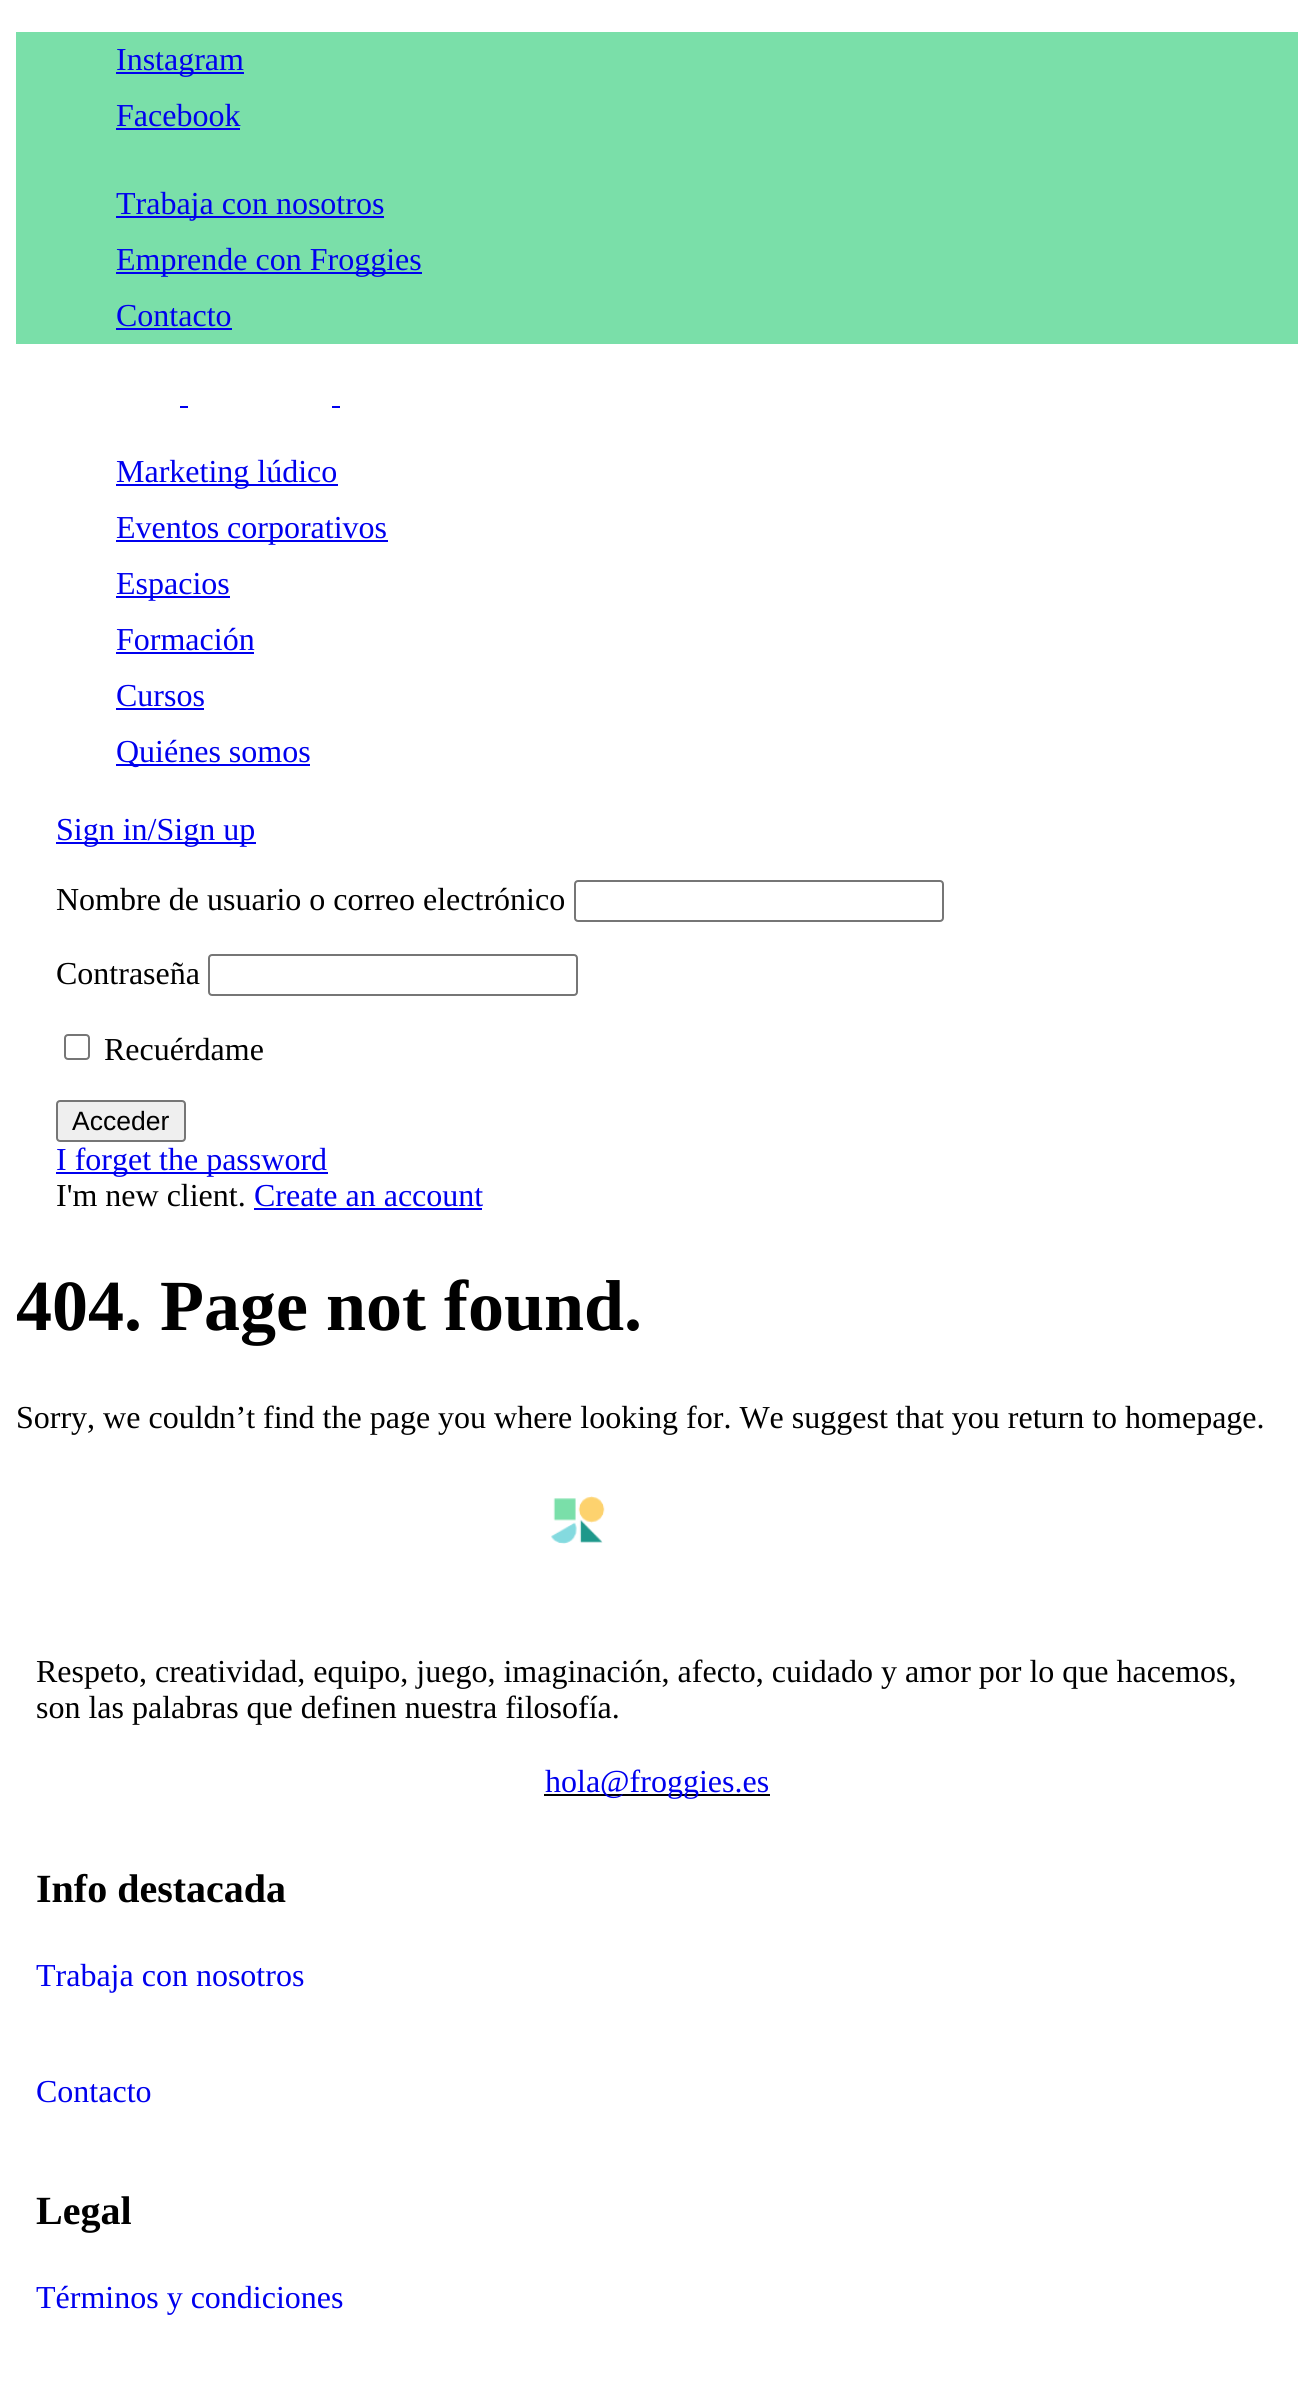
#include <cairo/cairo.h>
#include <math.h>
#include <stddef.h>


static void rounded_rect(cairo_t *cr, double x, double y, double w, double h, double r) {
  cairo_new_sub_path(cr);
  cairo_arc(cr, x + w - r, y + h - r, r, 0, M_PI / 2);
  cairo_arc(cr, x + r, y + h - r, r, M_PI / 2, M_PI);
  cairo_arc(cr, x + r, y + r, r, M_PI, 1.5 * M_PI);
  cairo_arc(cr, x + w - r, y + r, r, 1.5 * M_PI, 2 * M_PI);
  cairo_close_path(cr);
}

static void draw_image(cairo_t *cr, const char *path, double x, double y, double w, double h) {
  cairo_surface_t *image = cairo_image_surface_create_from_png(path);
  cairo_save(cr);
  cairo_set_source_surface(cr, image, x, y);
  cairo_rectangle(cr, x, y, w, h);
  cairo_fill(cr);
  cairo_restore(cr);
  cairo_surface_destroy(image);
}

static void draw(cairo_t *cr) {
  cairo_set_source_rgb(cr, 1, 1, 1);
  cairo_paint(cr);
  cairo_set_source_rgb(cr, 122 / 255.0, 223 / 255.0, 169 / 255.0);
  cairo_rectangle(cr, 16, 32, 1282, 312);
  cairo_fill(cr);
  cairo_set_source_rgb(cr, 0, 0, 238 / 255.0);
  cairo_rectangle(cr, 116, 72, 128, 2);
  cairo_fill(cr);
  cairo_rectangle(cr, 116, 128, 124, 2);
  cairo_fill(cr);
  cairo_rectangle(cr, 116, 216, 268, 2);
  cairo_fill(cr);
  cairo_rectangle(cr, 116, 272, 306, 2);
  cairo_fill(cr);
  cairo_rectangle(cr, 116, 328, 116, 2);
  cairo_fill(cr);
  cairo_rectangle(cr, 180, 406, 8, 2);
  cairo_fill(cr);
  cairo_rectangle(cr, 332, 406, 8, 2);
  cairo_fill(cr);
  cairo_rectangle(cr, 116, 484, 222, 2);
  cairo_fill(cr);
  cairo_rectangle(cr, 116, 540, 272, 2);
  cairo_fill(cr);
  cairo_rectangle(cr, 116, 596, 114, 2);
  cairo_fill(cr);
  cairo_rectangle(cr, 116, 652, 138, 2);
  cairo_fill(cr);
  cairo_rectangle(cr, 116, 708, 88, 2);
  cairo_fill(cr);
  cairo_rectangle(cr, 116, 764, 194, 2);
  cairo_fill(cr);
  cairo_rectangle(cr, 56, 842, 200, 2);
  cairo_fill(cr);
  rounded_rect(cr, 575, 881, 368, 40, 3);
  cairo_set_source_rgb(cr, 118 / 255.0, 118 / 255.0, 118 / 255.0);
  cairo_stroke(cr);
  rounded_rect(cr, 209, 955, 368, 40, 3);
  cairo_stroke(cr);
  rounded_rect(cr, 65, 1035, 24, 24, 3);
  cairo_stroke(cr);
  cairo_set_source_rgb(cr, 239 / 255.0, 239 / 255.0, 239 / 255.0);
  rounded_rect(cr, 57, 1101, 128, 40, 3);
  cairo_fill_preserve(cr);
  cairo_set_source_rgb(cr, 118 / 255.0, 118 / 255.0, 118 / 255.0);
  cairo_stroke(cr);
  cairo_set_source_rgb(cr, 0, 0, 238 / 255.0);
  cairo_rectangle(cr, 56, 1172, 272, 2);
  cairo_fill(cr);
  cairo_rectangle(cr, 254, 1208, 228, 2);
  cairo_fill(cr);
  draw_image(cr, "images/1.png", 551, 1496, 54, 48);
  cairo_set_source_rgb(cr, 0, 0, 0);
  cairo_rectangle(cr, 544, 1794, 226, 2);
  cairo_fill(cr);
  cairo_select_font_face(cr, "Liberation Serif", CAIRO_FONT_SLANT_NORMAL, CAIRO_FONT_WEIGHT_NORMAL);
  cairo_set_font_size(cr, 32);
  cairo_set_source_rgb(cr, 0, 0, 238 / 255.0);
  cairo_move_to(cr, 116, 70);
  cairo_show_text(cr, "Instagram");
  cairo_move_to(cr, 116, 126);
  cairo_show_text(cr, "Facebook");
  cairo_move_to(cr, 116, 214);
  cairo_show_text(cr, "Trabaja con nosotros");
  cairo_move_to(cr, 116, 270);
  cairo_show_text(cr, "Emprende con Froggies");
  cairo_move_to(cr, 116, 326);
  cairo_show_text(cr, "Contacto");
  cairo_move_to(cr, 116, 482);
  cairo_show_text(cr, "Marketing lúdico");
  cairo_move_to(cr, 116, 538);
  cairo_show_text(cr, "Eventos corporativos");
  cairo_move_to(cr, 116, 594);
  cairo_show_text(cr, "Espacios");
  cairo_move_to(cr, 116, 650);
  cairo_show_text(cr, "Formación");
  cairo_move_to(cr, 116, 706);
  cairo_show_text(cr, "Cursos");
  cairo_move_to(cr, 116, 762);
  cairo_show_text(cr, "Quiénes somos");
  cairo_move_to(cr, 56, 840);
  cairo_show_text(cr, "Sign in/Sign up");
  cairo_set_source_rgb(cr, 0, 0, 0);
  cairo_move_to(cr, 56, 910);
  cairo_show_text(cr, "Nombre de usuario o correo electrónico");
  cairo_move_to(cr, 56, 984);
  cairo_show_text(cr, "Contraseña");
  cairo_move_to(cr, 104, 1060);
  cairo_show_text(cr, "Recuérdame");
  cairo_select_font_face(cr, "Liberation Sans", CAIRO_FONT_SLANT_NORMAL, CAIRO_FONT_WEIGHT_NORMAL);
  cairo_set_font_size(cr, 26.5);
  cairo_move_to(cr, 72, 1130);
  cairo_show_text(cr, "Acceder");
  cairo_select_font_face(cr, "Liberation Serif", CAIRO_FONT_SLANT_NORMAL, CAIRO_FONT_WEIGHT_NORMAL);
  cairo_set_font_size(cr, 32);
  cairo_set_source_rgb(cr, 0, 0, 238 / 255.0);
  cairo_move_to(cr, 56, 1170);
  cairo_show_text(cr, "I forget the password");
  cairo_set_source_rgb(cr, 0, 0, 0);
  cairo_move_to(cr, 56, 1206);
  cairo_show_text(cr, "I'm new client.");
  cairo_set_source_rgb(cr, 0, 0, 238 / 255.0);
  cairo_move_to(cr, 254, 1206);
  cairo_show_text(cr, "Create an account");
  cairo_select_font_face(cr, "Liberation Serif", CAIRO_FONT_SLANT_NORMAL, CAIRO_FONT_WEIGHT_BOLD);
  cairo_set_font_size(cr, 72);
  cairo_set_source_rgb(cr, 0, 0, 0);
  cairo_move_to(cr, 16, 1330);
  cairo_show_text(cr, "404. Page not found.");
  cairo_select_font_face(cr, "Liberation Serif", CAIRO_FONT_SLANT_NORMAL, CAIRO_FONT_WEIGHT_NORMAL);
  cairo_set_font_size(cr, 32);
  cairo_move_to(cr, 16, 1428);
  cairo_show_text(cr, "Sorry, we couldn’t find the page you where looking for. We suggest that you return to homepage.");
  cairo_move_to(cr, 36, 1682);
  cairo_show_text(cr, "Respeto, creatividad, equipo, juego, imaginación, afecto, cuidado y amor por lo que hacemos,");
  cairo_move_to(cr, 36, 1718);
  cairo_show_text(cr, "son las palabras que definen nuestra filosofía.");
  cairo_set_source_rgb(cr, 0, 0, 238 / 255.0);
  cairo_move_to(cr, 545, 1792);
  cairo_show_text(cr, "hola@froggies.es");
  cairo_select_font_face(cr, "Liberation Serif", CAIRO_FONT_SLANT_NORMAL, CAIRO_FONT_WEIGHT_BOLD);
  cairo_set_font_size(cr, 40);
  cairo_set_source_rgb(cr, 0, 0, 0);
  cairo_move_to(cr, 36, 1902);
  cairo_show_text(cr, "Info destacada");
  cairo_select_font_face(cr, "Liberation Serif", CAIRO_FONT_SLANT_NORMAL, CAIRO_FONT_WEIGHT_NORMAL);
  cairo_set_font_size(cr, 32);
  cairo_set_source_rgb(cr, 0, 0, 238 / 255.0);
  cairo_move_to(cr, 36, 1986);
  cairo_show_text(cr, "Trabaja con nosotros");
  cairo_move_to(cr, 36, 2102);
  cairo_show_text(cr, "Contacto");
  cairo_select_font_face(cr, "Liberation Serif", CAIRO_FONT_SLANT_NORMAL, CAIRO_FONT_WEIGHT_BOLD);
  cairo_set_font_size(cr, 40);
  cairo_set_source_rgb(cr, 0, 0, 0);
  cairo_move_to(cr, 36, 2224);
  cairo_show_text(cr, "Legal");
  cairo_select_font_face(cr, "Liberation Serif", CAIRO_FONT_SLANT_NORMAL, CAIRO_FONT_WEIGHT_NORMAL);
  cairo_set_font_size(cr, 32);
  cairo_set_source_rgb(cr, 0, 0, 238 / 255.0);
  cairo_move_to(cr, 36, 2308);
  cairo_show_text(cr, "Términos y condiciones");
}

int main(void) {
  cairo_surface_t *surface = cairo_image_surface_create(CAIRO_FORMAT_RGB24, 1313, 2393);
  cairo_t *cr = cairo_create(surface);
  cairo_font_options_t *options = cairo_font_options_create();
  cairo_font_options_set_hint_metrics(options, CAIRO_HINT_METRICS_OFF);
  cairo_font_options_set_hint_style(options, CAIRO_HINT_STYLE_NONE);
  cairo_set_font_options(cr, options);
  cairo_set_miter_limit(cr, 4);
  draw(cr);
  cairo_surface_write_to_png(surface, "out.png");
  cairo_font_options_destroy(options);
  cairo_destroy(cr);
  cairo_surface_destroy(surface);
  return 0;
}
